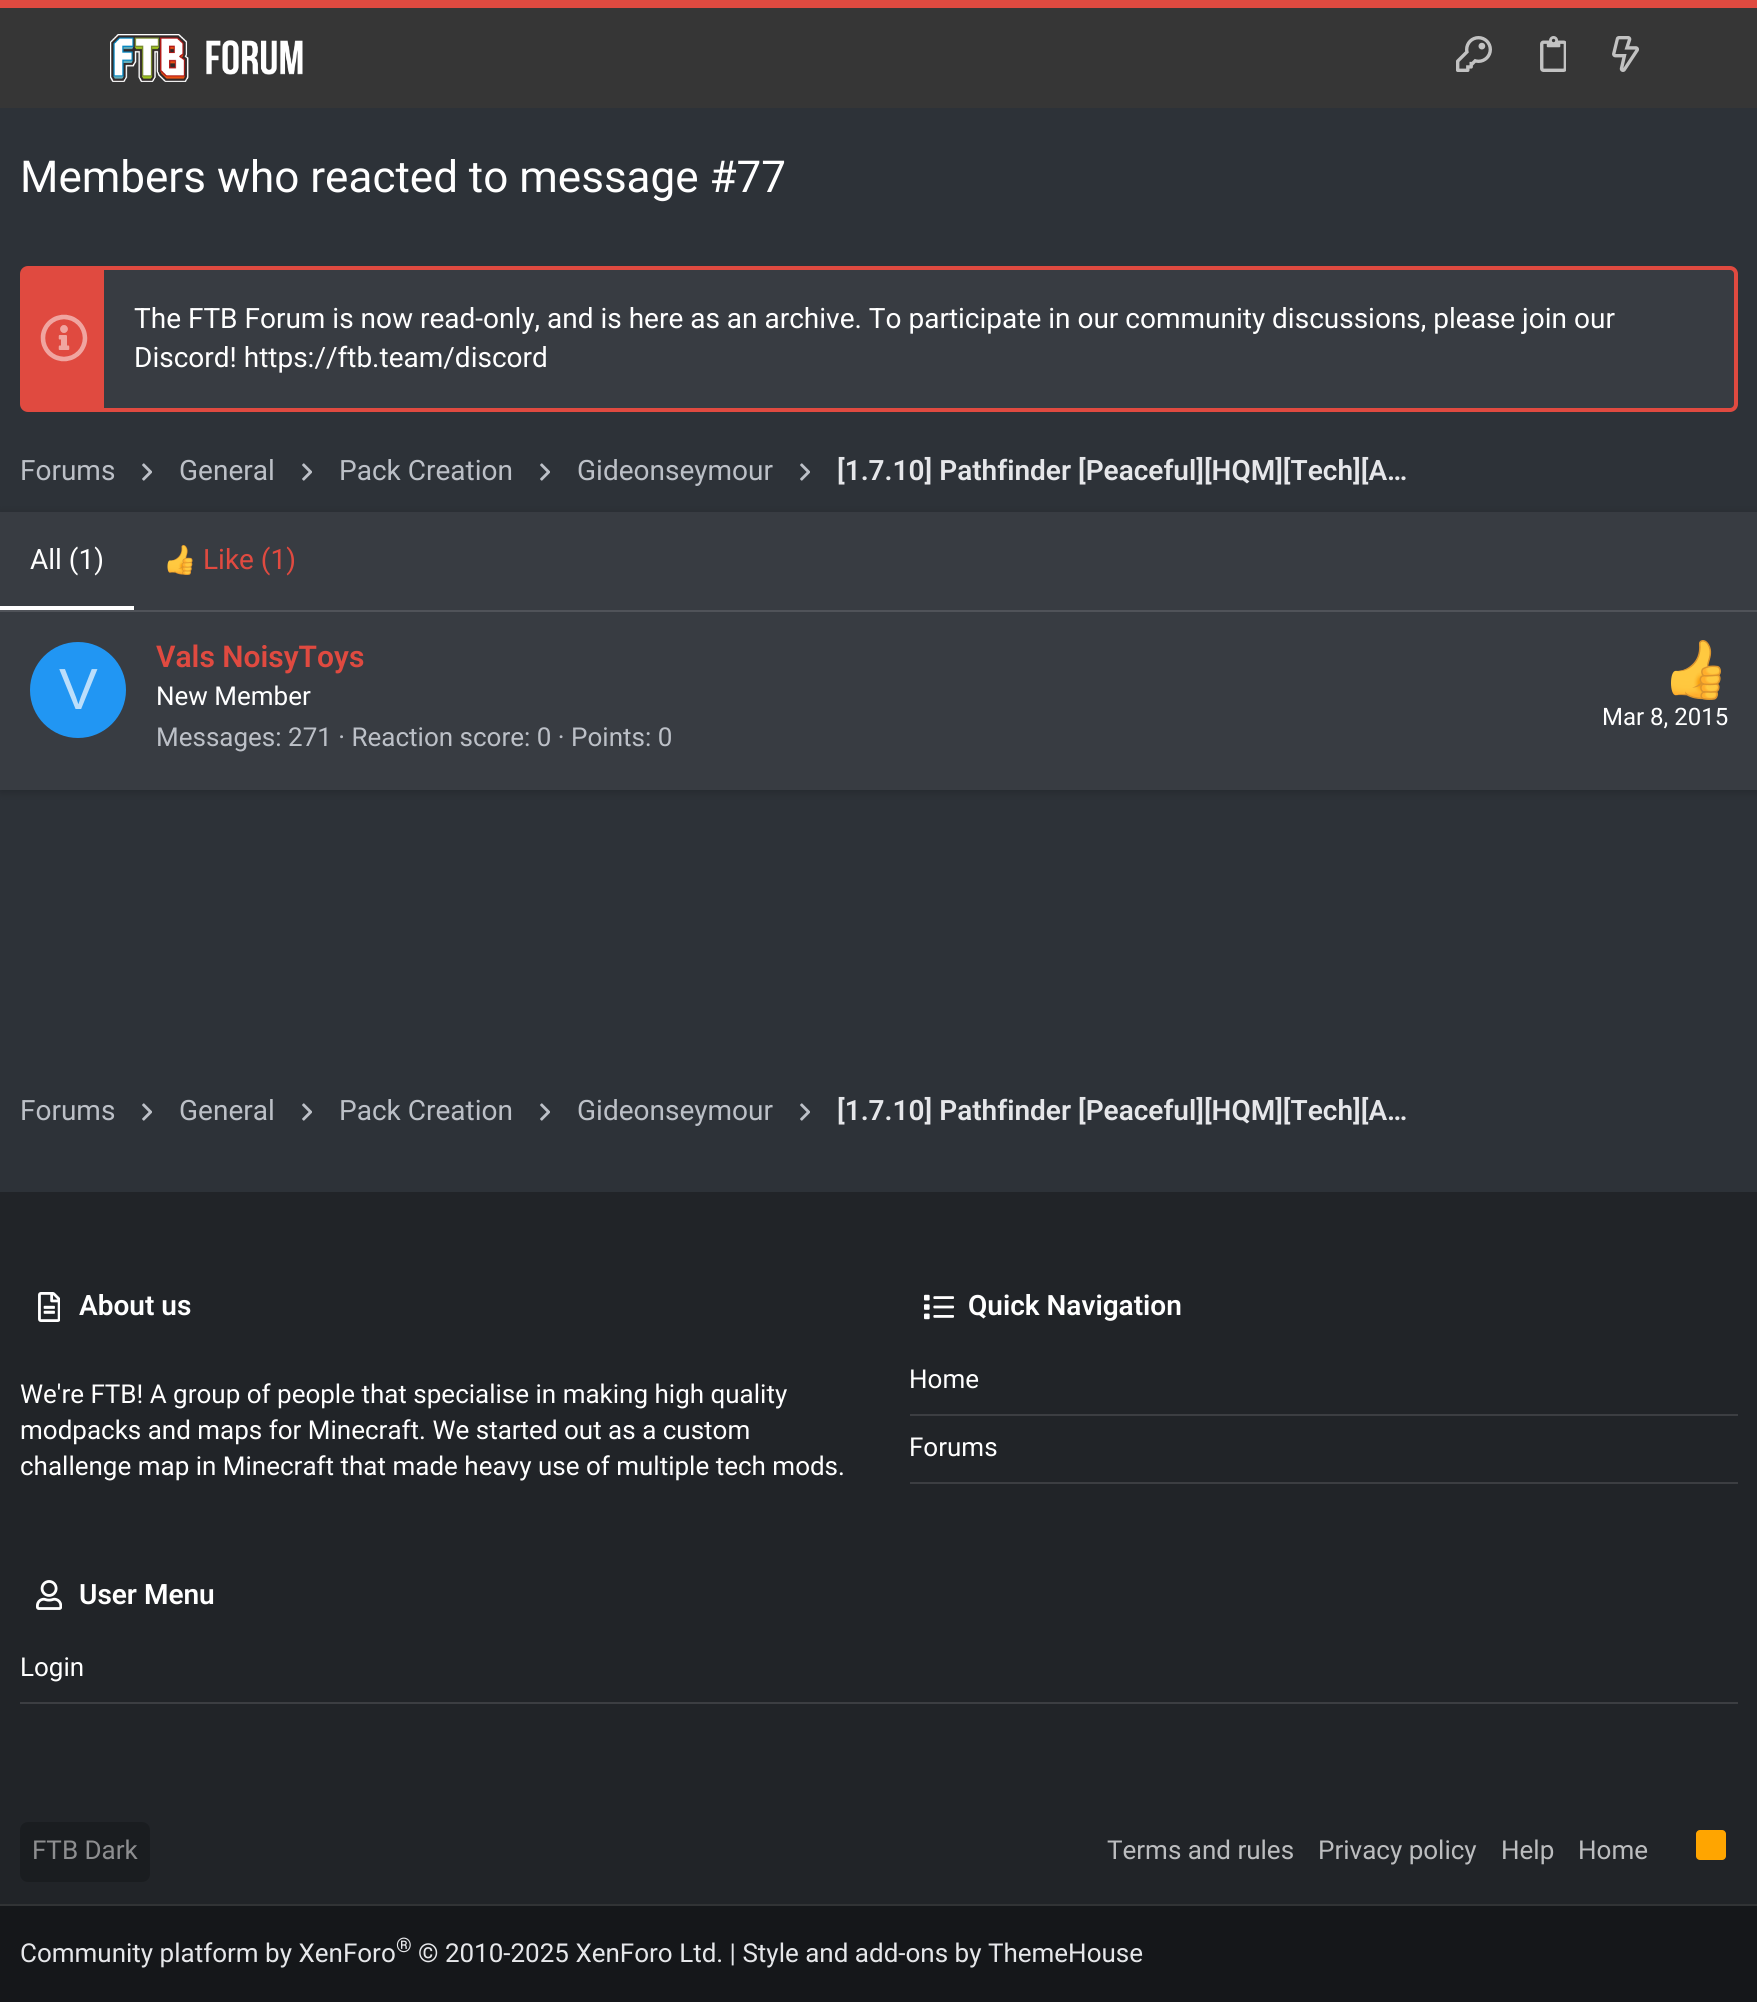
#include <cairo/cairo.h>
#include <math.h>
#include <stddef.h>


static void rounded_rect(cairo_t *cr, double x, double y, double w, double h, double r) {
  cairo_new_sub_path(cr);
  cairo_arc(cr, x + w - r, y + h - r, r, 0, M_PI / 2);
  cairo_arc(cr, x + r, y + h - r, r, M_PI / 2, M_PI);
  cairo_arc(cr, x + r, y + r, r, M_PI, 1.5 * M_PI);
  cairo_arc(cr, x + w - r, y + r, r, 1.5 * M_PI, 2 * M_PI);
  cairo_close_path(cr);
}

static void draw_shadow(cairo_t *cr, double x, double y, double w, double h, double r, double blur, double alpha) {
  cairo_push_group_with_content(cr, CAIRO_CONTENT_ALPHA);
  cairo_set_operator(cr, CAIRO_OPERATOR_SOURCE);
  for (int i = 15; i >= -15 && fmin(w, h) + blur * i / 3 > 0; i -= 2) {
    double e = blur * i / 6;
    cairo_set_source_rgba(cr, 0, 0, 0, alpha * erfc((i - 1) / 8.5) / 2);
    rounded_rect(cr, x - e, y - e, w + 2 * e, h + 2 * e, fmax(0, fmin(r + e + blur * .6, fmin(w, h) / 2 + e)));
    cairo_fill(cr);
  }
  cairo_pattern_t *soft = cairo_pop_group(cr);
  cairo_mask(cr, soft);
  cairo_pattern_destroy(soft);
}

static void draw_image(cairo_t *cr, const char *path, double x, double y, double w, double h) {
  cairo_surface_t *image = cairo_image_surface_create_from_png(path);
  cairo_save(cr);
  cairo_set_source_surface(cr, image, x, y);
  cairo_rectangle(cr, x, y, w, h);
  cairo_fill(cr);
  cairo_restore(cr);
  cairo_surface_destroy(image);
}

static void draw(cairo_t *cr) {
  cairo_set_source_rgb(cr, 45 / 255.0, 50 / 255.0, 56 / 255.0);
  cairo_paint(cr);
  cairo_set_source_rgb(cr, 54 / 255.0, 54 / 255.0, 54 / 255.0);
  cairo_rectangle(cr, 0, 8, 1757, 100);
  cairo_fill(cr);
  cairo_set_source_rgb(cr, 224 / 255.0, 74 / 255.0, 64 / 255.0);
  cairo_rectangle(cr, 0, 0, 1757, 8);
  cairo_fill(cr);
  draw_image(cr, "images/1.png", 110, 34, 193, 48);
  draw_image(cr, "images/2.png", 1456, 36, 36, 36);
  draw_image(cr, "images/3.png", 1540, 36, 26, 36);
  draw_image(cr, "images/4.png", 1612, 36, 27, 36);
  cairo_set_source_rgb(cr, 56 / 255.0, 60 / 255.0, 66 / 255.0);
  rounded_rect(cr, 22, 268, 1714, 142, 6);
  cairo_fill_preserve(cr);
  cairo_set_source_rgb(cr, 224 / 255.0, 74 / 255.0, 64 / 255.0);
  cairo_set_line_width(cr, 4);
  cairo_stroke(cr);
  cairo_rectangle(cr, 24, 270, 80, 138);
  cairo_fill(cr);
  draw_image(cr, "images/5.png", 40, 314, 48, 48);
  draw_image(cr, "images/6.png", 142, 463, 10, 18);
  draw_image(cr, "images/6.png", 302, 463, 10, 18);
  draw_image(cr, "images/6.png", 540, 463, 10, 18);
  draw_image(cr, "images/6.png", 800, 463, 10, 18);
  cairo_set_source_rgb(cr, 0, 0, 0);
  draw_shadow(cr, 0, 514, 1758, 278, 0, 5, 0.2);
  cairo_set_source_rgb(cr, 56 / 255.0, 60 / 255.0, 66 / 255.0);
  cairo_rectangle(cr, 0, 512, 1757, 278);
  cairo_fill(cr);
  cairo_set_source_rgb(cr, 80 / 255.0, 83 / 255.0, 89 / 255.0);
  cairo_rectangle(cr, 0, 610, 1757, 2);
  cairo_fill(cr);
  cairo_set_source_rgb(cr, 1, 1, 1);
  cairo_rectangle(cr, 0, 606, 134, 4);
  cairo_fill(cr);
  draw_image(cr, "images/7.png", 167, 545, 26, 30);
  cairo_set_source_rgb(cr, 33 / 255.0, 150 / 255.0, 243 / 255.0);
  cairo_arc(cr, 78, 690, 48, 0, 2 * M_PI);
  cairo_fill(cr);
  draw_image(cr, "images/8.png", 1671, 640, 50, 60);
  draw_image(cr, "images/6.png", 142, 1103, 10, 18);
  draw_image(cr, "images/6.png", 302, 1103, 10, 18);
  draw_image(cr, "images/6.png", 540, 1103, 10, 18);
  draw_image(cr, "images/6.png", 800, 1103, 10, 18);
  cairo_set_source_rgb(cr, 33 / 255.0, 36 / 255.0, 40 / 255.0);
  cairo_rectangle(cr, 0, 1192, 1757, 712);
  cairo_fill(cr);
  draw_image(cr, "images/9.png", 38, 1292, 22, 30);
  draw_image(cr, "images/10.png", 924, 1294, 30, 26);
  cairo_set_source_rgb(cr, 60 / 255.0, 62 / 255.0, 66 / 255.0);
  cairo_rectangle(cr, 910, 1414, 828, 2);
  cairo_fill(cr);
  cairo_rectangle(cr, 910, 1482, 828, 2);
  cairo_fill(cr);
  draw_image(cr, "images/11.png", 36, 1580, 26, 30);
  cairo_rectangle(cr, 20, 1702, 1718, 2);
  cairo_fill(cr);
  cairo_set_source_rgb(cr, 26 / 255.0, 29 / 255.0, 32 / 255.0);
  rounded_rect(cr, 20, 1822, 130, 60, 8);
  cairo_fill(cr);
  cairo_set_source_rgb(cr, 1, 165 / 255.0, 0);
  rounded_rect(cr, 1696, 1830, 30, 30, 4);
  cairo_fill(cr);
  cairo_set_source_rgb(cr, 21 / 255.0, 23 / 255.0, 26 / 255.0);
  cairo_rectangle(cr, 0, 1906, 1757, 96);
  cairo_fill(cr);
  cairo_set_source_rgb(cr, 49 / 255.0, 51 / 255.0, 53 / 255.0);
  cairo_rectangle(cr, 0, 1904, 1757, 2);
  cairo_fill(cr);
  cairo_select_font_face(cr, "Roboto", CAIRO_FONT_SLANT_NORMAL, CAIRO_FONT_WEIGHT_NORMAL);
  cairo_set_font_size(cr, 44);
  cairo_set_source_rgb(cr, 1, 1, 1);
  cairo_move_to(cr, 20, 192);
  cairo_show_text(cr, "Members who reacted to message #77");
  cairo_set_font_size(cr, 28);
  cairo_move_to(cr, 134, 328);
  cairo_show_text(cr, "The FTB Forum is now read-only, and is here as an archive. To participate in our community discussions, please join our");
  cairo_move_to(cr, 134, 367);
  cairo_show_text(cr, "Discord! https://ftb.team/discord");
  cairo_set_source_rgb(cr, 188 / 255.0, 192 / 255.0, 199 / 255.0);
  cairo_move_to(cr, 20, 480);
  cairo_show_text(cr, "Forums");
  cairo_move_to(cr, 179, 480);
  cairo_show_text(cr, "General");
  cairo_move_to(cr, 339, 480);
  cairo_show_text(cr, "Pack Creation");
  cairo_move_to(cr, 577, 480);
  cairo_show_text(cr, "Gideonseymour");
  cairo_select_font_face(cr, "Roboto SemiBold", CAIRO_FONT_SLANT_NORMAL, CAIRO_FONT_WEIGHT_NORMAL);
  cairo_set_source_rgb(cr, 230 / 255.0, 231 / 255.0, 234 / 255.0);
  cairo_move_to(cr, 837, 480);
  cairo_show_text(cr, "[1.7.10] Pathfinder [Peaceful][HQM][Tech][A…");
  cairo_select_font_face(cr, "Roboto", CAIRO_FONT_SLANT_NORMAL, CAIRO_FONT_WEIGHT_NORMAL);
  cairo_set_source_rgb(cr, 1, 1, 1);
  cairo_move_to(cr, 30, 569);
  cairo_show_text(cr, "All (1)");
  cairo_set_source_rgb(cr, 224 / 255.0, 74 / 255.0, 64 / 255.0);
  cairo_move_to(cr, 203, 569);
  cairo_show_text(cr, "Like (1)");
  cairo_select_font_face(cr, "Liberation Sans", CAIRO_FONT_SLANT_NORMAL, CAIRO_FONT_WEIGHT_NORMAL);
  cairo_set_font_size(cr, 58);
  cairo_set_source_rgb(cr, 187 / 255.0, 222 / 255.0, 251 / 255.0);
  cairo_move_to(cr, 59, 709);
  cairo_show_text(cr, "V");
  cairo_select_font_face(cr, "Roboto SemiBold", CAIRO_FONT_SLANT_NORMAL, CAIRO_FONT_WEIGHT_NORMAL);
  cairo_set_font_size(cr, 30);
  cairo_set_source_rgb(cr, 224 / 255.0, 74 / 255.0, 64 / 255.0);
  cairo_move_to(cr, 156, 667);
  cairo_show_text(cr, "Vals NoisyToys");
  cairo_select_font_face(cr, "Roboto", CAIRO_FONT_SLANT_NORMAL, CAIRO_FONT_WEIGHT_NORMAL);
  cairo_set_font_size(cr, 26);
  cairo_set_source_rgb(cr, 1, 1, 1);
  cairo_move_to(cr, 156, 705);
  cairo_show_text(cr, "New Member");
  cairo_set_font_size(cr, 24);
  cairo_move_to(cr, 1602, 725);
  cairo_show_text(cr, "Mar 8, 2015");
  cairo_set_font_size(cr, 26);
  cairo_set_source_rgb(cr, 188 / 255.0, 192 / 255.0, 199 / 255.0);
  cairo_move_to(cr, 156, 746);
  cairo_show_text(cr, "Messages: 271 · Reaction score: 0 · Points: 0");
  cairo_set_font_size(cr, 28);
  cairo_move_to(cr, 20, 1120);
  cairo_show_text(cr, "Forums");
  cairo_move_to(cr, 179, 1120);
  cairo_show_text(cr, "General");
  cairo_move_to(cr, 339, 1120);
  cairo_show_text(cr, "Pack Creation");
  cairo_move_to(cr, 577, 1120);
  cairo_show_text(cr, "Gideonseymour");
  cairo_select_font_face(cr, "Roboto SemiBold", CAIRO_FONT_SLANT_NORMAL, CAIRO_FONT_WEIGHT_NORMAL);
  cairo_set_source_rgb(cr, 230 / 255.0, 231 / 255.0, 234 / 255.0);
  cairo_move_to(cr, 837, 1120);
  cairo_show_text(cr, "[1.7.10] Pathfinder [Peaceful][HQM][Tech][A…");
  cairo_set_source_rgb(cr, 1, 1, 1);
  cairo_move_to(cr, 79, 1315);
  cairo_show_text(cr, "About us");
  cairo_select_font_face(cr, "Roboto", CAIRO_FONT_SLANT_NORMAL, CAIRO_FONT_WEIGHT_NORMAL);
  cairo_set_font_size(cr, 26);
  cairo_move_to(cr, 20, 1403);
  cairo_show_text(cr, "We're FTB! A group of people that specialise in making high quality");
  cairo_move_to(cr, 20, 1439);
  cairo_show_text(cr, "modpacks and maps for Minecraft. We started out as a custom");
  cairo_move_to(cr, 20, 1475);
  cairo_show_text(cr, "challenge map in Minecraft that made heavy use of multiple tech mods.");
  cairo_select_font_face(cr, "Roboto SemiBold", CAIRO_FONT_SLANT_NORMAL, CAIRO_FONT_WEIGHT_NORMAL);
  cairo_set_font_size(cr, 28);
  cairo_move_to(cr, 968, 1315);
  cairo_show_text(cr, "Quick Navigation");
  cairo_select_font_face(cr, "Roboto", CAIRO_FONT_SLANT_NORMAL, CAIRO_FONT_WEIGHT_NORMAL);
  cairo_set_font_size(cr, 26);
  cairo_move_to(cr, 909, 1388);
  cairo_show_text(cr, "Home");
  cairo_move_to(cr, 909, 1456);
  cairo_show_text(cr, "Forums");
  cairo_select_font_face(cr, "Roboto SemiBold", CAIRO_FONT_SLANT_NORMAL, CAIRO_FONT_WEIGHT_NORMAL);
  cairo_set_font_size(cr, 28);
  cairo_move_to(cr, 79, 1604);
  cairo_show_text(cr, "User Menu");
  cairo_select_font_face(cr, "Roboto", CAIRO_FONT_SLANT_NORMAL, CAIRO_FONT_WEIGHT_NORMAL);
  cairo_set_font_size(cr, 26);
  cairo_move_to(cr, 20, 1676);
  cairo_show_text(cr, "Login");
  cairo_set_source_rgb(cr, 141 / 255.0, 142 / 255.0, 144 / 255.0);
  cairo_move_to(cr, 32, 1859);
  cairo_show_text(cr, "FTB Dark");
  cairo_set_source_rgb(cr, 188 / 255.0, 189 / 255.0, 191 / 255.0);
  cairo_move_to(cr, 1107, 1859);
  cairo_show_text(cr, "Terms and rules");
  cairo_move_to(cr, 1318, 1859);
  cairo_show_text(cr, "Privacy policy");
  cairo_move_to(cr, 1501, 1859);
  cairo_show_text(cr, "Help");
  cairo_move_to(cr, 1578, 1859);
  cairo_show_text(cr, "Home");
  cairo_set_source_rgb(cr, 230 / 255.0, 231 / 255.0, 234 / 255.0);
  cairo_move_to(cr, 20, 1962);
  cairo_show_text(cr, "Community platform by XenForo");
  cairo_set_font_size(cr, 20);
  cairo_move_to(cr, 396, 1952);
  cairo_show_text(cr, "®");
  cairo_set_font_size(cr, 26);
  cairo_move_to(cr, 418, 1962);
  cairo_show_text(cr, "© 2010-2025 XenForo Ltd. | Style and add-ons by ThemeHouse");
}

int main(void) {
  cairo_surface_t *surface = cairo_image_surface_create(CAIRO_FORMAT_RGB24, 1757, 2002);
  cairo_t *cr = cairo_create(surface);
  cairo_font_options_t *options = cairo_font_options_create();
  cairo_font_options_set_hint_metrics(options, CAIRO_HINT_METRICS_OFF);
  cairo_font_options_set_hint_style(options, CAIRO_HINT_STYLE_NONE);
  cairo_set_font_options(cr, options);
  cairo_set_miter_limit(cr, 4);
  draw(cr);
  cairo_surface_write_to_png(surface, "out.png");
  cairo_font_options_destroy(options);
  cairo_destroy(cr);
  cairo_surface_destroy(surface);
  return 0;
}
